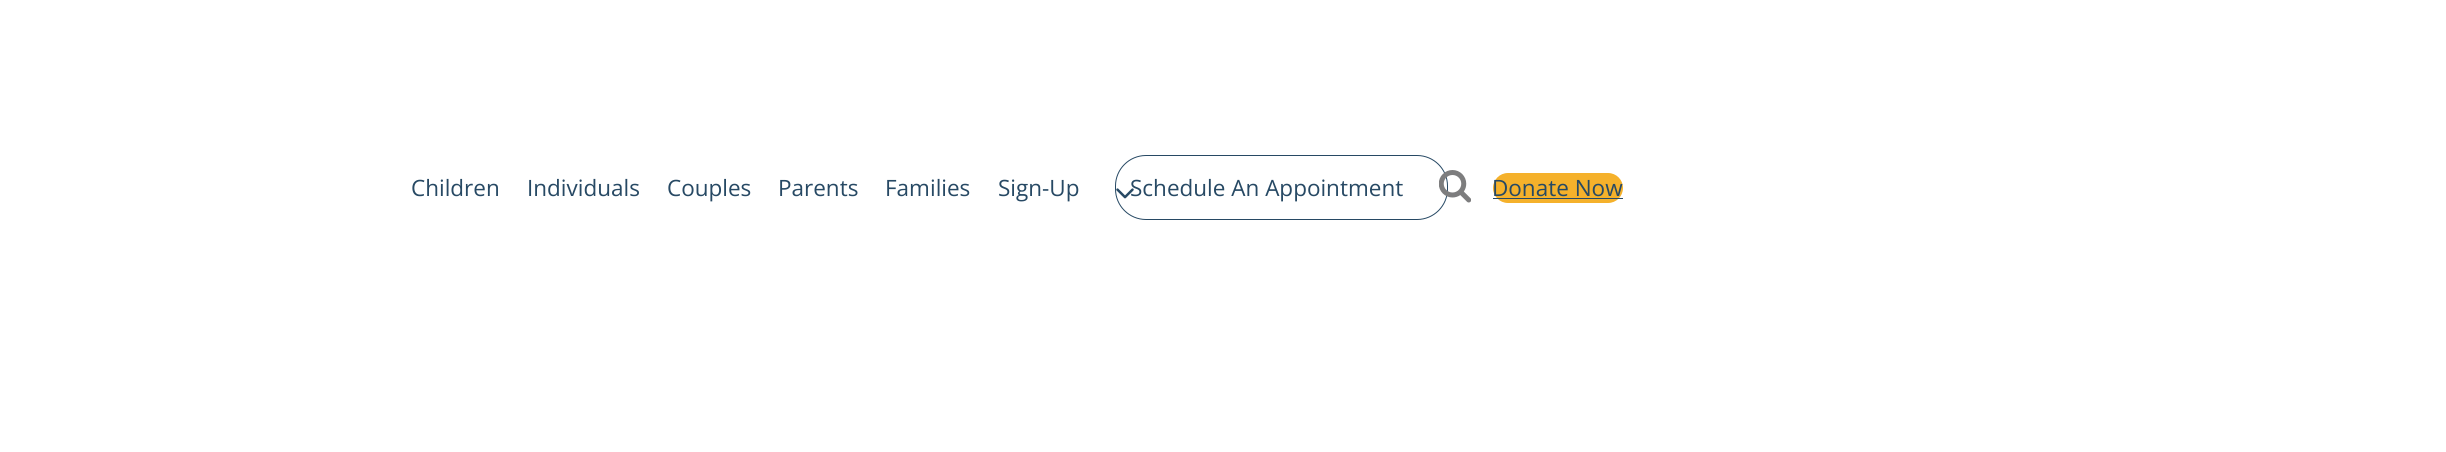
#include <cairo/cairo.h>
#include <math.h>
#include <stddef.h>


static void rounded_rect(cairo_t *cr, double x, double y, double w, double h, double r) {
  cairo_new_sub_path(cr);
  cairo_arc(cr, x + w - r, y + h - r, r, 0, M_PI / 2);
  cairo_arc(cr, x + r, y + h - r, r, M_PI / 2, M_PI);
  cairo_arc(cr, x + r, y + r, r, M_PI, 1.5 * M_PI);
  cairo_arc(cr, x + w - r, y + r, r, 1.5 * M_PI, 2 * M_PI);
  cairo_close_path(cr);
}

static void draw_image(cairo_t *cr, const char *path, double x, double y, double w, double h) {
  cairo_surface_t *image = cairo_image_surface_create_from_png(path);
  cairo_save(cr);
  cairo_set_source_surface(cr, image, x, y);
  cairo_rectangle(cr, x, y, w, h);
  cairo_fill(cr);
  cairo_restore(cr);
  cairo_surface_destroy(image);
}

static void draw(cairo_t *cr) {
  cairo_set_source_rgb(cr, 1, 1, 1);
  cairo_paint(cr);
  draw_image(cr, "images/1.png", 1116, 188, 18, 11);
  rounded_rect(cr, 1115.5, 155.5, 332, 64, 30.5);
  cairo_set_source_rgb(cr, 39 / 255.0, 73 / 255.0, 100 / 255.0);
  cairo_set_line_width(cr, 1);
  cairo_stroke(cr);
  draw_image(cr, "images/2.png", 1439, 170, 32, 33);
  cairo_set_source_rgb(cr, 245 / 255.0, 177 / 255.0, 43 / 255.0);
  rounded_rect(cr, 1493, 173, 130, 30, 15);
  cairo_fill(cr);
  cairo_set_source_rgb(cr, 39 / 255.0, 73 / 255.0, 100 / 255.0);
  cairo_rectangle(cr, 1493, 198, 130, 1);
  cairo_fill(cr);
  cairo_select_font_face(cr, "Open Sans", CAIRO_FONT_SLANT_NORMAL, CAIRO_FONT_WEIGHT_NORMAL);
  cairo_set_font_size(cr, 22.5);
  cairo_move_to(cr, 411, 196);
  cairo_show_text(cr, "Children");
  cairo_move_to(cr, 527, 196);
  cairo_show_text(cr, "Individuals");
  cairo_move_to(cr, 667, 196);
  cairo_show_text(cr, "Couples");
  cairo_move_to(cr, 778, 196);
  cairo_show_text(cr, "Parents");
  cairo_move_to(cr, 885, 196);
  cairo_show_text(cr, "Families");
  cairo_move_to(cr, 998, 196);
  cairo_show_text(cr, "Sign-Up");
  cairo_move_to(cr, 1130, 196);
  cairo_show_text(cr, "Schedule An Appointment");
  cairo_move_to(cr, 1492, 196);
  cairo_show_text(cr, "Donate Now");
}

int main(void) {
  cairo_surface_t *surface = cairo_image_surface_create(CAIRO_FORMAT_RGB24, 2446, 452);
  cairo_t *cr = cairo_create(surface);
  cairo_font_options_t *options = cairo_font_options_create();
  cairo_font_options_set_hint_metrics(options, CAIRO_HINT_METRICS_OFF);
  cairo_font_options_set_hint_style(options, CAIRO_HINT_STYLE_NONE);
  cairo_set_font_options(cr, options);
  cairo_set_miter_limit(cr, 4);
  draw(cr);
  cairo_surface_write_to_png(surface, "out.png");
  cairo_font_options_destroy(options);
  cairo_destroy(cr);
  cairo_surface_destroy(surface);
  return 0;
}
